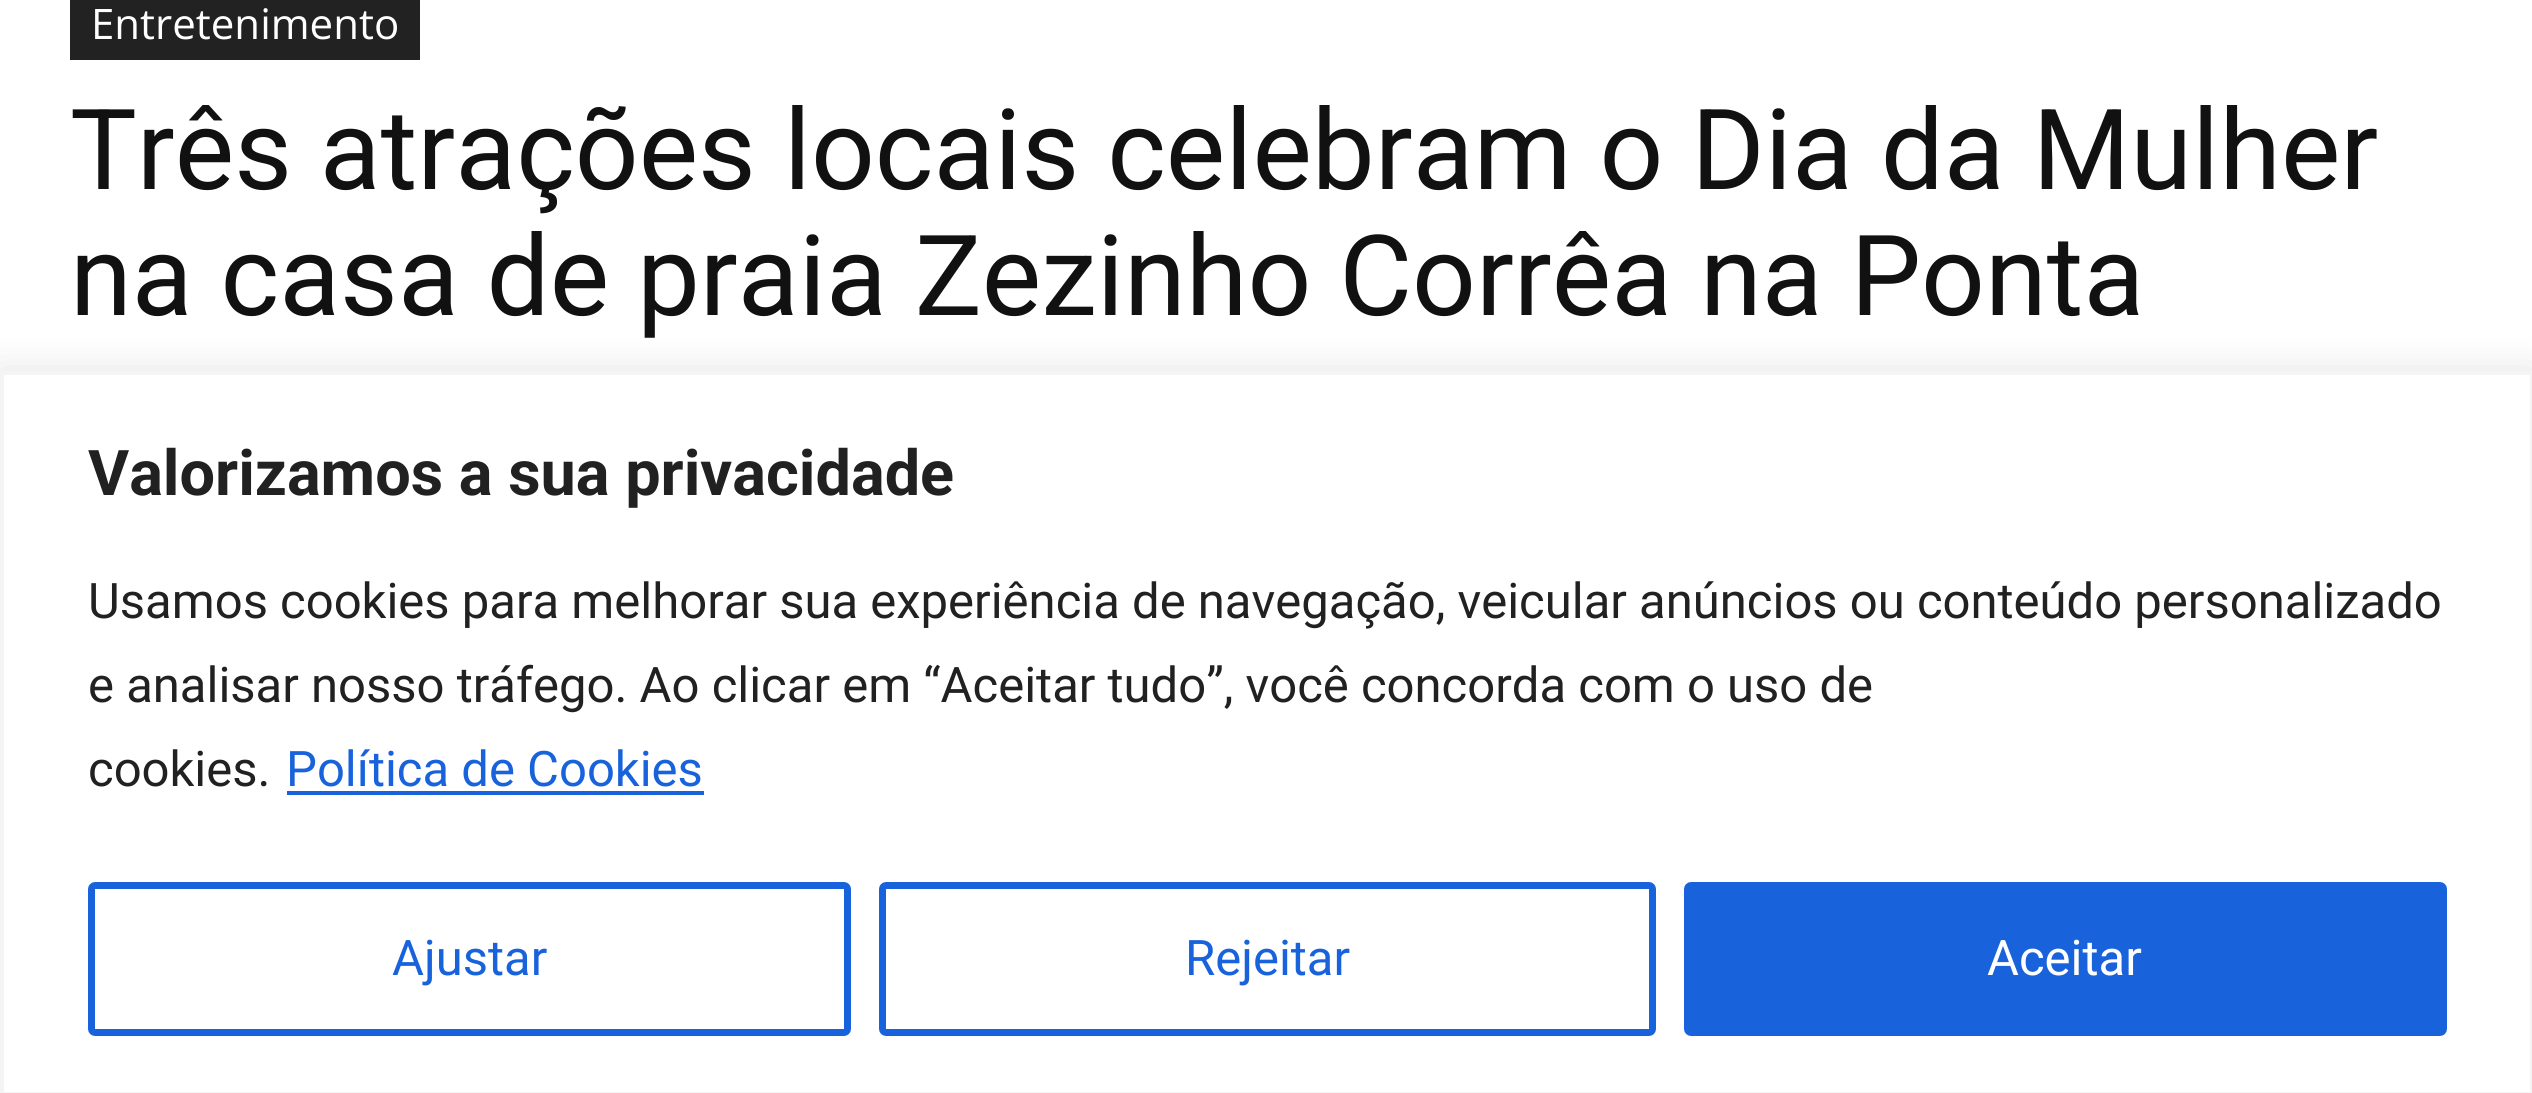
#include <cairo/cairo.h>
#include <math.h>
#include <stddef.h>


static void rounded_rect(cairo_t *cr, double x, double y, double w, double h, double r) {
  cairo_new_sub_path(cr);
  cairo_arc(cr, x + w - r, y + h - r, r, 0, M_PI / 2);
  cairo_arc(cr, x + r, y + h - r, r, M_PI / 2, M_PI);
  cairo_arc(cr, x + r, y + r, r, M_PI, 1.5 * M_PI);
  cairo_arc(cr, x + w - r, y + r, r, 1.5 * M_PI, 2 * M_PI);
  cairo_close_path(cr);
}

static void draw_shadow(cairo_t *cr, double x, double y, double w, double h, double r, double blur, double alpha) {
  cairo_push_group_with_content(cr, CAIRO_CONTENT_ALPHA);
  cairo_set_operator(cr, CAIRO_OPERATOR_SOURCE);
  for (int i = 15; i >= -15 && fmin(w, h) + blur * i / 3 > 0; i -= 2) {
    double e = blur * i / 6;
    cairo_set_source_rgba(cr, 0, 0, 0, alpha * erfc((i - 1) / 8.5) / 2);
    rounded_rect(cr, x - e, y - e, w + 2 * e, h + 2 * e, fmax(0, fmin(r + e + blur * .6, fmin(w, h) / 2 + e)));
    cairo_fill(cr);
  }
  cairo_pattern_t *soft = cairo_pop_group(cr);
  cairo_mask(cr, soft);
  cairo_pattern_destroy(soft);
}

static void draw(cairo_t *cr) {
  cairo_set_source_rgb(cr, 1, 1, 1);
  cairo_paint(cr);
  cairo_set_source_rgb(cr, 34 / 255.0, 34 / 255.0, 34 / 255.0);
  cairo_rectangle(cr, 70, 0, 350, 60);
  cairo_fill(cr);
  cairo_set_source_rgb(cr, 172 / 255.0, 171 / 255.0, 171 / 255.0);
  draw_shadow(cr, 0, 368, 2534, 724, 0, 17.5, 0.3);
  cairo_set_source_rgb(cr, 1, 1, 1);
  cairo_rectangle(cr, 2, 373, 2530, 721);
  cairo_fill_preserve(cr);
  cairo_set_source_rgb(cr, 244 / 255.0, 244 / 255.0, 244 / 255.0);
  cairo_set_line_width(cr, 4);
  cairo_stroke(cr);
  cairo_set_source_rgb(cr, 24 / 255.0, 99 / 255.0, 220 / 255.0);
  cairo_rectangle(cr, 287, 791, 417, 4);
  cairo_fill(cr);
  rounded_rect(cr, 91.5, 885.5, 756, 147, 3.5);
  cairo_set_line_width(cr, 7);
  cairo_stroke(cr);
  rounded_rect(cr, 882.5, 885.5, 770, 147, 3.5);
  cairo_stroke(cr);
  rounded_rect(cr, 1687.5, 885.5, 756, 147, 3.5);
  cairo_fill_preserve(cr);
  cairo_stroke(cr);
  cairo_select_font_face(cr, "Open Sans", CAIRO_FONT_SLANT_NORMAL, CAIRO_FONT_WEIGHT_NORMAL);
  cairo_set_font_size(cr, 42);
  cairo_set_source_rgb(cr, 1, 1, 1);
  cairo_move_to(cr, 91, 39);
  cairo_show_text(cr, "Entretenimento");
  cairo_select_font_face(cr, "Roboto", CAIRO_FONT_SLANT_NORMAL, CAIRO_FONT_WEIGHT_NORMAL);
  cairo_set_font_size(cr, 112);
  cairo_set_source_rgb(cr, 17 / 255.0, 17 / 255.0, 17 / 255.0);
  cairo_move_to(cr, 70, 189);
  cairo_show_text(cr, "Três atrações locais celebram o Dia da Mulher");
  cairo_move_to(cr, 70, 315);
  cairo_show_text(cr, "na casa de praia Zezinho Corrêa na Ponta");
  cairo_select_font_face(cr, "Roboto", CAIRO_FONT_SLANT_NORMAL, CAIRO_FONT_WEIGHT_BOLD);
  cairo_set_font_size(cr, 63);
  cairo_set_source_rgb(cr, 33 / 255.0, 33 / 255.0, 33 / 255.0);
  cairo_move_to(cr, 88, 495);
  cairo_show_text(cr, "Valorizamos a sua privacidade");
  cairo_select_font_face(cr, "Roboto", CAIRO_FONT_SLANT_NORMAL, CAIRO_FONT_WEIGHT_NORMAL);
  cairo_set_font_size(cr, 49);
  cairo_move_to(cr, 88, 618);
  cairo_show_text(cr, "Usamos cookies para melhorar sua experiência de navegação, veicular anúncios ou conteúdo personalizado");
  cairo_move_to(cr, 88, 702);
  cairo_show_text(cr, "e analisar nosso tráfego. Ao clicar em “Aceitar tudo”, você concorda com o uso de");
  cairo_move_to(cr, 88, 786);
  cairo_show_text(cr, "cookies.");
  cairo_set_source_rgb(cr, 24 / 255.0, 99 / 255.0, 220 / 255.0);
  cairo_move_to(cr, 286, 786);
  cairo_show_text(cr, "Política de Cookies");
  cairo_move_to(cr, 392, 975);
  cairo_show_text(cr, "Ajustar");
  cairo_move_to(cr, 1185, 975);
  cairo_show_text(cr, "Rejeitar");
  cairo_set_source_rgb(cr, 1, 1, 1);
  cairo_move_to(cr, 1987, 975);
  cairo_show_text(cr, "Aceitar");
}

int main(void) {
  cairo_surface_t *surface = cairo_image_surface_create(CAIRO_FORMAT_RGB24, 2532, 1093);
  cairo_t *cr = cairo_create(surface);
  cairo_font_options_t *options = cairo_font_options_create();
  cairo_font_options_set_hint_metrics(options, CAIRO_HINT_METRICS_OFF);
  cairo_font_options_set_hint_style(options, CAIRO_HINT_STYLE_NONE);
  cairo_set_font_options(cr, options);
  cairo_set_miter_limit(cr, 4);
  draw(cr);
  cairo_surface_write_to_png(surface, "out.png");
  cairo_font_options_destroy(options);
  cairo_destroy(cr);
  cairo_surface_destroy(surface);
  return 0;
}
